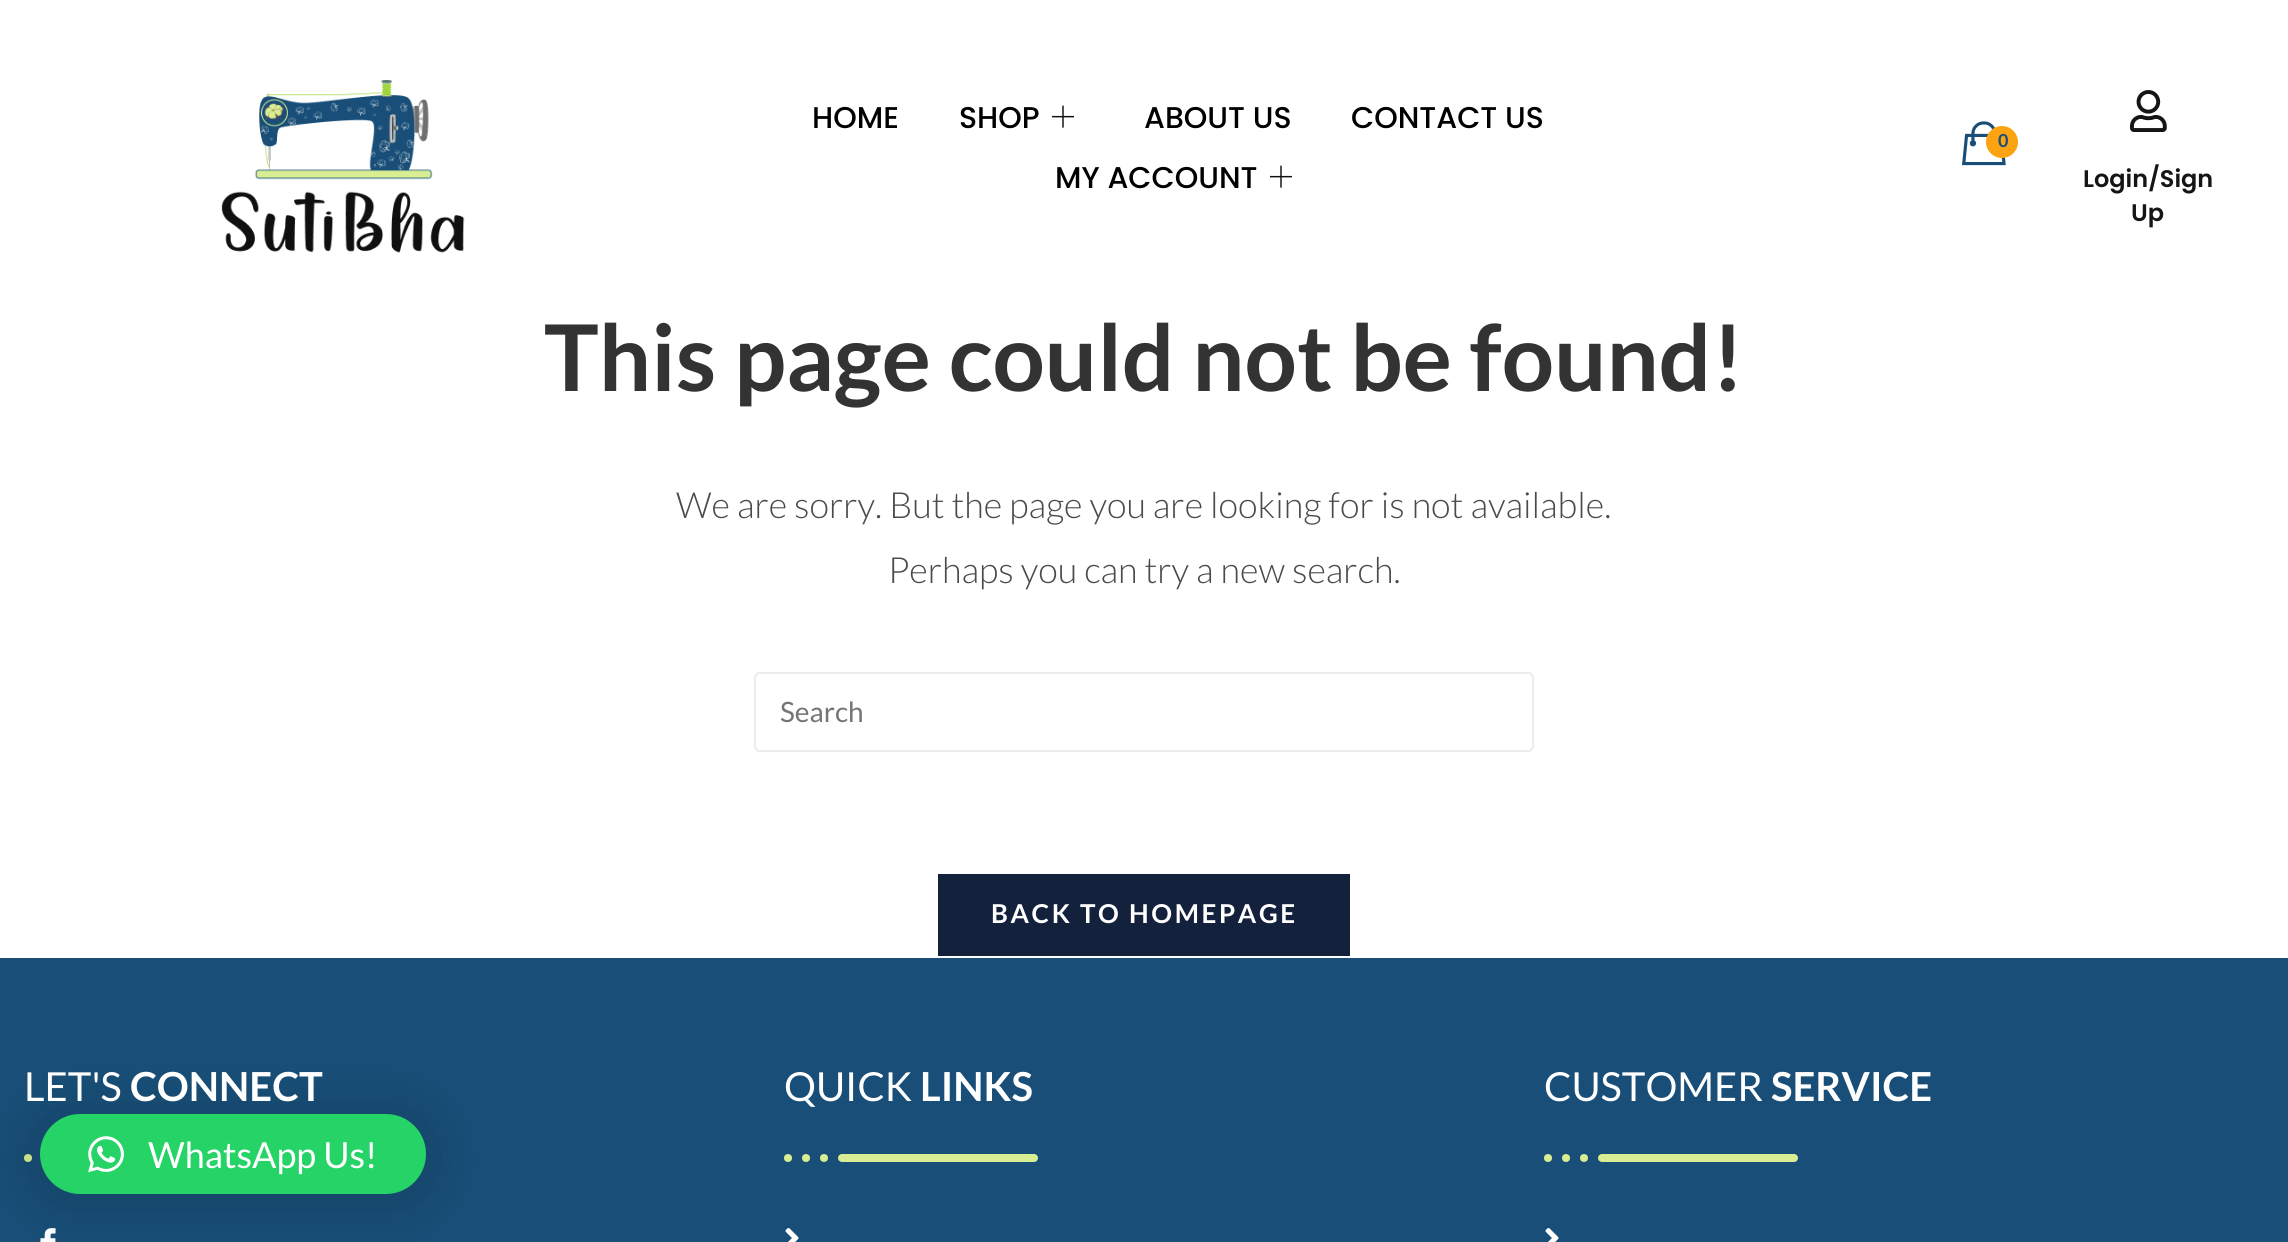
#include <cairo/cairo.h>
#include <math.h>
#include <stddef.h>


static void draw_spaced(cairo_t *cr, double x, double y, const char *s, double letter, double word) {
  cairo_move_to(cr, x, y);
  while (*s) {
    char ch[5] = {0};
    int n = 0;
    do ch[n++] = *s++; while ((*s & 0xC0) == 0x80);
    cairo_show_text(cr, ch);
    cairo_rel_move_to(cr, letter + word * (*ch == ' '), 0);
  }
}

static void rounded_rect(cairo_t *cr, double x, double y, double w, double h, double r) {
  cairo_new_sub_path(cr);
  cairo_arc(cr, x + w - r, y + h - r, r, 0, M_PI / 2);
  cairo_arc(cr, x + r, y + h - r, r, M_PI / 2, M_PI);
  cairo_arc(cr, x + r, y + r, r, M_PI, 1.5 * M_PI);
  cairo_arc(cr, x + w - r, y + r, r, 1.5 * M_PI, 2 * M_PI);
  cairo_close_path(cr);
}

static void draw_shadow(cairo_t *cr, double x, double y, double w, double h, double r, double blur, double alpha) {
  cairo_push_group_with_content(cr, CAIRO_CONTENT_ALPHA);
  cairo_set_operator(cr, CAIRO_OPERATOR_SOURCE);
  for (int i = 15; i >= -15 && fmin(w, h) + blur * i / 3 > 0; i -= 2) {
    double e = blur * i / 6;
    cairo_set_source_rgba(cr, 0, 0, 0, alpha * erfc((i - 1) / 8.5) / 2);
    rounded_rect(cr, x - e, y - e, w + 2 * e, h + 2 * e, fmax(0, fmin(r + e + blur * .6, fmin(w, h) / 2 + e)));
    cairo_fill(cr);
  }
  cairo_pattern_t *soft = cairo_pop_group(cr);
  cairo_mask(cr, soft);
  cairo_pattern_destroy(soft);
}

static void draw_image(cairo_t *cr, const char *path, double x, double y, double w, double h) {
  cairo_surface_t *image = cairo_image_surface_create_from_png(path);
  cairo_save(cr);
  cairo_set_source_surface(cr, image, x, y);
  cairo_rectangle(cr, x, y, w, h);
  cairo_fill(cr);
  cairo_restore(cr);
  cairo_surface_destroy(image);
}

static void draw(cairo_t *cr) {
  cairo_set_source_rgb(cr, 1, 1, 1);
  cairo_paint(cr);
  draw_image(cr, "images/1.png", 221, 80, 244, 173);
  draw_image(cr, "images/2.png", 1052, 105, 22, 23);
  draw_image(cr, "images/2.png", 1270, 165, 22, 23);
  draw_image(cr, "images/3.png", 1962, 121, 44, 45);
  cairo_set_source_rgb(cr, 252 / 255.0, 163 / 255.0, 17 / 255.0);
  cairo_arc(cr, 2002, 142, 16, 0, 2 * M_PI);
  cairo_fill(cr);
  draw_image(cr, "images/4.png", 2130, 90, 37, 42);
  rounded_rect(cr, 755, 673, 778, 78, 5);
  cairo_set_source_rgb(cr, 236 / 255.0, 236 / 255.0, 236 / 255.0);
  cairo_stroke(cr);
  cairo_set_source_rgb(cr, 20 / 255.0, 33 / 255.0, 61 / 255.0);
  cairo_rectangle(cr, 938, 874, 412, 82);
  cairo_fill(cr);
  cairo_set_source_rgb(cr, 24 / 255.0, 78 / 255.0, 119 / 255.0);
  cairo_rectangle(cr, 0, 958, 2288, 284);
  cairo_fill(cr);
  cairo_set_source_rgb(cr, 217 / 255.0, 237 / 255.0, 146 / 255.0);
  cairo_arc(cr, 28, 1158, 4, 0, 2 * M_PI);
  cairo_fill(cr);
  draw_image(cr, "images/5.png", 40, 1228, 16, 14);
  rounded_rect(cr, 838, 1154, 200, 8, 4);
  cairo_fill(cr);
  cairo_arc(cr, 824, 1158, 4, 0, 2 * M_PI);
  cairo_fill(cr);
  cairo_arc(cr, 806, 1158, 4, 0, 2 * M_PI);
  cairo_fill(cr);
  cairo_arc(cr, 788, 1158, 4, 0, 2 * M_PI);
  cairo_fill(cr);
  draw_image(cr, "images/6.png", 785, 1228, 14, 14);
  rounded_rect(cr, 1598, 1154, 200, 8, 4);
  cairo_fill(cr);
  cairo_arc(cr, 1584, 1158, 4, 0, 2 * M_PI);
  cairo_fill(cr);
  cairo_arc(cr, 1566, 1158, 4, 0, 2 * M_PI);
  cairo_fill(cr);
  cairo_arc(cr, 1548, 1158, 4, 0, 2 * M_PI);
  cairo_fill(cr);
  draw_image(cr, "images/6.png", 1545, 1228, 14, 14);
  cairo_set_source_rgb(cr, 0, 0, 0);
  draw_shadow(cr, 40, 1118, 386, 80, 40, 32, 0.16);
  cairo_set_source_rgb(cr, 37 / 255.0, 211 / 255.0, 102 / 255.0);
  rounded_rect(cr, 40, 1114, 386, 80, 40);
  cairo_fill(cr);
  draw_image(cr, "images/7.png", 88, 1136, 36, 37);
  cairo_select_font_face(cr, "Poppins Medium", CAIRO_FONT_SLANT_NORMAL, CAIRO_FONT_WEIGHT_NORMAL);
  cairo_set_font_size(cr, 30);
  cairo_set_source_rgb(cr, 0, 0, 0);
  cairo_move_to(cr, 812, 128);
  cairo_show_text(cr, "HOME");
  cairo_move_to(cr, 959, 128);
  cairo_show_text(cr, "SHOP");
  cairo_move_to(cr, 1144, 128);
  cairo_show_text(cr, "ABOUT US");
  cairo_move_to(cr, 1351, 128);
  cairo_show_text(cr, "CONTACT US");
  cairo_move_to(cr, 1055, 188);
  cairo_show_text(cr, "MY ACCOUNT");
  cairo_select_font_face(cr, "Lato", CAIRO_FONT_SLANT_NORMAL, CAIRO_FONT_WEIGHT_BOLD);
  cairo_set_font_size(cr, 18);
  cairo_set_source_rgb(cr, 24 / 255.0, 78 / 255.0, 119 / 255.0);
  cairo_move_to(cr, 1998, 147);
  cairo_show_text(cr, "0");
  cairo_select_font_face(cr, "Poppins SemiBold", CAIRO_FONT_SLANT_NORMAL, CAIRO_FONT_WEIGHT_NORMAL);
  cairo_set_font_size(cr, 24);
  cairo_set_source_rgb(cr, 21 / 255.0, 21 / 255.0, 21 / 255.0);
  cairo_move_to(cr, 2083, 187);
  cairo_show_text(cr, "Login/Sign");
  cairo_move_to(cr, 2131, 221);
  cairo_show_text(cr, "Up");
  cairo_select_font_face(cr, "Lato", CAIRO_FONT_SLANT_NORMAL, CAIRO_FONT_WEIGHT_BOLD);
  cairo_set_font_size(cr, 92);
  cairo_set_source_rgb(cr, 51 / 255.0, 51 / 255.0, 51 / 255.0);
  cairo_move_to(cr, 544, 391);
  cairo_show_text(cr, "This page could not be found!");
  cairo_select_font_face(cr, "Lato Light", CAIRO_FONT_SLANT_NORMAL, CAIRO_FONT_WEIGHT_NORMAL);
  cairo_set_font_size(cr, 36);
  cairo_set_source_rgb(cr, 74 / 255.0, 74 / 255.0, 74 / 255.0);
  cairo_move_to(cr, 676, 518);
  cairo_show_text(cr, "We are sorry. But the page you are looking for is not available.");
  cairo_move_to(cr, 888, 583);
  cairo_show_text(cr, "Perhaps you can try a new search.");
  cairo_select_font_face(cr, "Lato", CAIRO_FONT_SLANT_NORMAL, CAIRO_FONT_WEIGHT_NORMAL);
  cairo_set_font_size(cr, 28);
  cairo_set_source_rgb(cr, 117 / 255.0, 117 / 255.0, 117 / 255.0);
  cairo_move_to(cr, 780, 722);
  cairo_show_text(cr, "Search");
  cairo_select_font_face(cr, "Lato", CAIRO_FONT_SLANT_NORMAL, CAIRO_FONT_WEIGHT_BOLD);
  cairo_set_font_size(cr, 26);
  cairo_set_source_rgb(cr, 1, 1, 1);
  draw_spaced(cr, 991, 923, "BACK TO HOMEPAGE", 2.6, 0);
  cairo_select_font_face(cr, "Lato", CAIRO_FONT_SLANT_NORMAL, CAIRO_FONT_WEIGHT_NORMAL);
  cairo_set_font_size(cr, 40);
  cairo_move_to(cr, 24, 1101);
  cairo_show_text(cr, "LET'S");
  cairo_select_font_face(cr, "Lato", CAIRO_FONT_SLANT_NORMAL, CAIRO_FONT_WEIGHT_BOLD);
  cairo_move_to(cr, 130, 1101);
  cairo_show_text(cr, "CONNECT");
  cairo_select_font_face(cr, "Lato", CAIRO_FONT_SLANT_NORMAL, CAIRO_FONT_WEIGHT_NORMAL);
  cairo_move_to(cr, 784, 1101);
  cairo_show_text(cr, "QUICK");
  cairo_select_font_face(cr, "Lato", CAIRO_FONT_SLANT_NORMAL, CAIRO_FONT_WEIGHT_BOLD);
  cairo_move_to(cr, 920, 1101);
  cairo_show_text(cr, "LINKS");
  cairo_select_font_face(cr, "Lato", CAIRO_FONT_SLANT_NORMAL, CAIRO_FONT_WEIGHT_NORMAL);
  cairo_move_to(cr, 1544, 1101);
  cairo_show_text(cr, "CUSTOMER");
  cairo_select_font_face(cr, "Lato", CAIRO_FONT_SLANT_NORMAL, CAIRO_FONT_WEIGHT_BOLD);
  cairo_move_to(cr, 1771, 1101);
  cairo_show_text(cr, "SERVICE");
  cairo_select_font_face(cr, "Lato", CAIRO_FONT_SLANT_NORMAL, CAIRO_FONT_WEIGHT_NORMAL);
  cairo_set_font_size(cr, 36);
  cairo_move_to(cr, 148, 1168);
  cairo_show_text(cr, "WhatsApp Us!");
}

int main(void) {
  cairo_surface_t *surface = cairo_image_surface_create(CAIRO_FORMAT_RGB24, 2288, 1242);
  cairo_t *cr = cairo_create(surface);
  cairo_font_options_t *options = cairo_font_options_create();
  cairo_font_options_set_hint_metrics(options, CAIRO_HINT_METRICS_OFF);
  cairo_font_options_set_hint_style(options, CAIRO_HINT_STYLE_NONE);
  cairo_set_font_options(cr, options);
  cairo_set_miter_limit(cr, 4);
  draw(cr);
  cairo_surface_write_to_png(surface, "out.png");
  cairo_font_options_destroy(options);
  cairo_destroy(cr);
  cairo_surface_destroy(surface);
  return 0;
}
